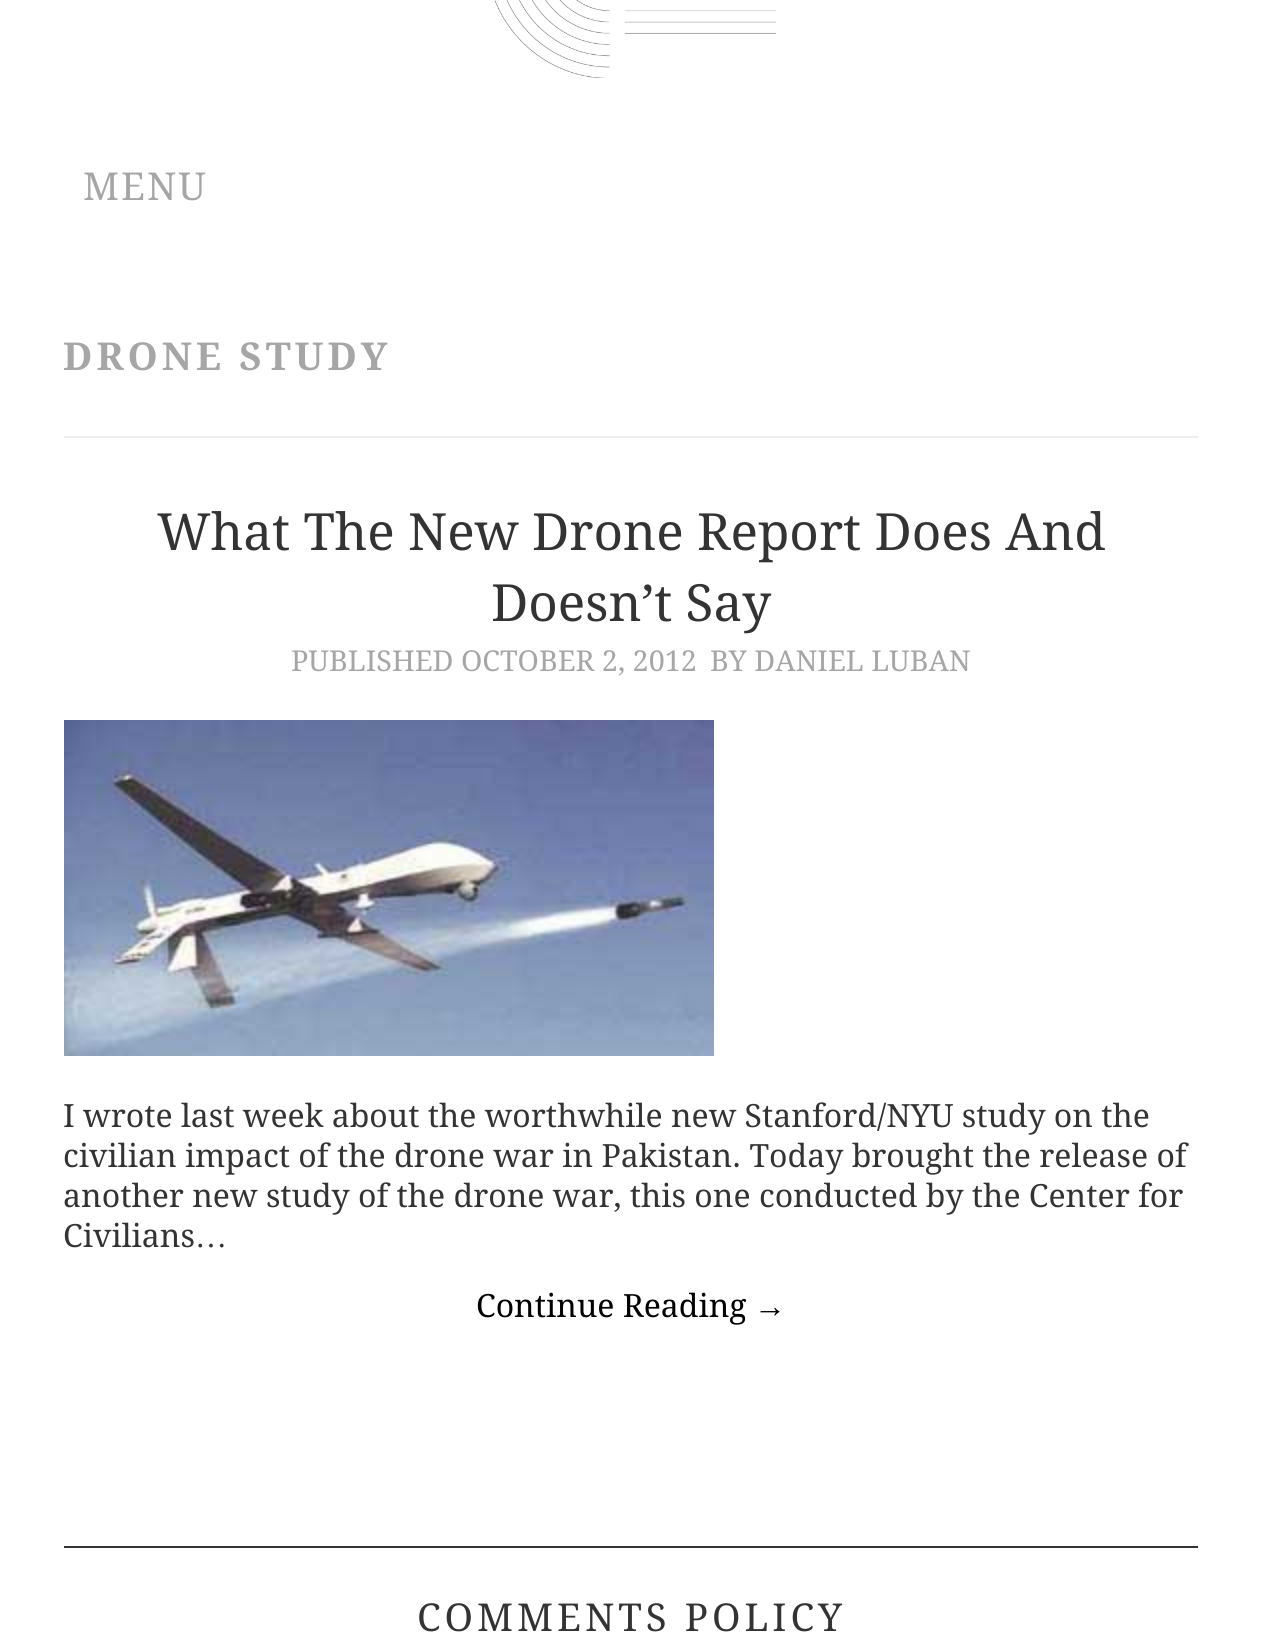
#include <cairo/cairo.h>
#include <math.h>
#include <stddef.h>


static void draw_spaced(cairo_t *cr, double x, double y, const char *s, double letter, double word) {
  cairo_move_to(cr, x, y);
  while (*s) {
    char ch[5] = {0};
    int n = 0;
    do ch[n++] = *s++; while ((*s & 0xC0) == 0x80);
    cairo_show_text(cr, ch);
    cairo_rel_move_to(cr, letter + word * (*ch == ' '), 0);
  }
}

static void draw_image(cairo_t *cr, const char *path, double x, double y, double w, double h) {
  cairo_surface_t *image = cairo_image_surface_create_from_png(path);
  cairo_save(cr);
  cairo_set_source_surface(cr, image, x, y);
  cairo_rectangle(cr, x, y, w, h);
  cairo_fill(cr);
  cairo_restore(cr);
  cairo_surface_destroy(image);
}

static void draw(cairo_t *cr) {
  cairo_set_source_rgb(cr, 1, 1, 1);
  cairo_paint(cr);
  draw_image(cr, "images/1.png", 494, 0, 282, 78);
  cairo_set_source_rgb(cr, 238 / 255.0, 238 / 255.0, 238 / 255.0);
  cairo_rectangle(cr, 64, 436, 1134, 2);
  cairo_fill(cr);
  draw_image(cr, "images/2.png", 64, 720, 650, 336);
  cairo_set_source_rgb(cr, 51 / 255.0, 51 / 255.0, 51 / 255.0);
  cairo_rectangle(cr, 64, 1546, 1134, 2);
  cairo_fill(cr);
  cairo_select_font_face(cr, "Droid Serif", CAIRO_FONT_SLANT_NORMAL, CAIRO_FONT_WEIGHT_NORMAL);
  cairo_set_font_size(cr, 38.4);
  cairo_set_source_rgb(cr, 166 / 255.0, 166 / 255.0, 166 / 255.0);
  draw_spaced(cr, 83, 200, "MENU", 2, 0);
  cairo_select_font_face(cr, "Droid Serif", CAIRO_FONT_SLANT_NORMAL, CAIRO_FONT_WEIGHT_BOLD);
  draw_spaced(cr, 63, 370, "DRONE STUDY", 4, 0);
  cairo_select_font_face(cr, "Droid Serif", CAIRO_FONT_SLANT_NORMAL, CAIRO_FONT_WEIGHT_NORMAL);
  cairo_set_font_size(cr, 51.25);
  cairo_set_source_rgb(cr, 51 / 255.0, 51 / 255.0, 51 / 255.0);
  cairo_move_to(cr, 157, 550);
  cairo_show_text(cr, "What The New Drone Report Does And");
  cairo_move_to(cr, 491, 621);
  cairo_show_text(cr, "Doesn’t Say");
  cairo_set_font_size(cr, 28.75);
  cairo_set_source_rgb(cr, 166 / 255.0, 166 / 255.0, 166 / 255.0);
  cairo_move_to(cr, 291, 671);
  cairo_show_text(cr, "PUBLISHED OCTOBER 2, 2012");
  cairo_move_to(cr, 710, 671);
  cairo_show_text(cr, "BY DANIEL LUBAN");
  cairo_set_font_size(cr, 32);
  cairo_set_source_rgb(cr, 51 / 255.0, 51 / 255.0, 51 / 255.0);
  cairo_move_to(cr, 63, 1127);
  cairo_show_text(cr, "I wrote last week about the worthwhile new Stanford/NYU study on the");
  cairo_move_to(cr, 63, 1167);
  cairo_show_text(cr, "civilian impact of the drone war in Pakistan. Today brought the release of");
  cairo_move_to(cr, 63, 1207);
  cairo_show_text(cr, "another new study of the drone war, this one conducted by the Center for");
  cairo_move_to(cr, 63, 1247);
  cairo_show_text(cr, "Civilians");
  cairo_select_font_face(cr, "Liberation Serif", CAIRO_FONT_SLANT_NORMAL, CAIRO_FONT_WEIGHT_NORMAL);
  cairo_move_to(cr, 195, 1247);
  cairo_show_text(cr, "…");
  cairo_select_font_face(cr, "Droid Serif", CAIRO_FONT_SLANT_NORMAL, CAIRO_FONT_WEIGHT_NORMAL);
  cairo_set_source_rgb(cr, 0, 0, 0);
  cairo_move_to(cr, 476, 1317);
  cairo_show_text(cr, "Continue Reading");
  cairo_select_font_face(cr, "Liberation Serif", CAIRO_FONT_SLANT_NORMAL, CAIRO_FONT_WEIGHT_NORMAL);
  cairo_move_to(cr, 754, 1317);
  cairo_show_text(cr, "→");
  cairo_select_font_face(cr, "Droid Serif", CAIRO_FONT_SLANT_NORMAL, CAIRO_FONT_WEIGHT_NORMAL);
  cairo_set_font_size(cr, 38.4);
  cairo_set_source_rgb(cr, 51 / 255.0, 51 / 255.0, 51 / 255.0);
  draw_spaced(cr, 417, 1631, "COMMENTS POLICY", 4, 0);
}

int main(void) {
  cairo_surface_t *surface = cairo_image_surface_create(CAIRO_FORMAT_RGB24, 1262, 1636);
  cairo_t *cr = cairo_create(surface);
  cairo_font_options_t *options = cairo_font_options_create();
  cairo_font_options_set_hint_metrics(options, CAIRO_HINT_METRICS_OFF);
  cairo_font_options_set_hint_style(options, CAIRO_HINT_STYLE_NONE);
  cairo_set_font_options(cr, options);
  cairo_set_miter_limit(cr, 4);
  draw(cr);
  cairo_surface_write_to_png(surface, "out.png");
  cairo_font_options_destroy(options);
  cairo_destroy(cr);
  cairo_surface_destroy(surface);
  return 0;
}
